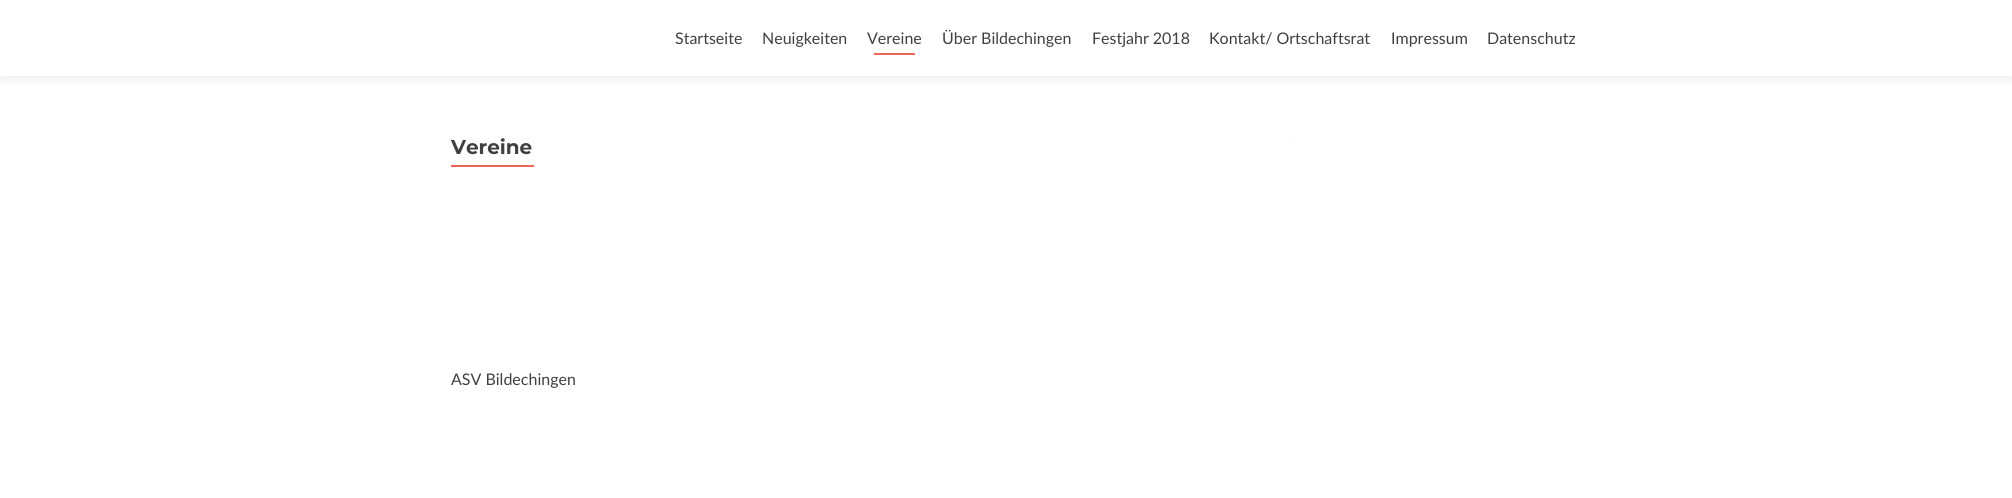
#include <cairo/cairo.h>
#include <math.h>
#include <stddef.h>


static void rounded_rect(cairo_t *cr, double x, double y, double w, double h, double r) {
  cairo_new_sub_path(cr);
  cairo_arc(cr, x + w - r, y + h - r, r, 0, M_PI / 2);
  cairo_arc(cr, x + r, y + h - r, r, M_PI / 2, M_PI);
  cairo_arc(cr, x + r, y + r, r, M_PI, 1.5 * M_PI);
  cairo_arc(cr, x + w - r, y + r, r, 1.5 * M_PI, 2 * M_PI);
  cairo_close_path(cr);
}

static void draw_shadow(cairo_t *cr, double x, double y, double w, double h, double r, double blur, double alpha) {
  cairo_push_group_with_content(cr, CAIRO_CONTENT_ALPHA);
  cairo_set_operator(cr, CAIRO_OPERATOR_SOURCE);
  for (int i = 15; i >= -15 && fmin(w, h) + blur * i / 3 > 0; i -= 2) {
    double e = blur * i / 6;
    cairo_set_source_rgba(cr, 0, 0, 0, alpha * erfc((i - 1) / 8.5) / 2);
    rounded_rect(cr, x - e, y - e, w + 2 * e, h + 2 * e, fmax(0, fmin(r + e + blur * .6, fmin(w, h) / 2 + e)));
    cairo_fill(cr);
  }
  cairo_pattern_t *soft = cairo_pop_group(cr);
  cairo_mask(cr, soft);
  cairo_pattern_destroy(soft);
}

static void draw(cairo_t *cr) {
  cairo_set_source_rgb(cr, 1, 1, 1);
  cairo_paint(cr);
  cairo_save(cr);
  cairo_rectangle(cr, 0, 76, 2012, 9);
  cairo_clip(cr);
  cairo_set_source_rgb(cr, 50 / 255.0, 50 / 255.0, 50 / 255.0);
  draw_shadow(cr, 0, 5, 2012, 76, 0, 5.5, 0.08);
  cairo_restore(cr);
  cairo_set_source_rgb(cr, 233 / 255.0, 102 / 255.0, 86 / 255.0);
  cairo_rectangle(cr, 874, 53, 41, 2);
  cairo_fill(cr);
  cairo_set_source_rgb(cr, 242 / 255.0, 242 / 255.0, 242 / 255.0);
  cairo_rectangle(cr, 1291, 136, 1, 1);
  cairo_fill(cr);
  cairo_set_source_rgb(cr, 233 / 255.0, 102 / 255.0, 86 / 255.0);
  cairo_rectangle(cr, 451, 165, 83, 2);
  cairo_fill(cr);
  cairo_select_font_face(cr, "Lato", CAIRO_FONT_SLANT_NORMAL, CAIRO_FONT_WEIGHT_NORMAL);
  cairo_set_font_size(cr, 16);
  cairo_set_source_rgb(cr, 64 / 255.0, 64 / 255.0, 64 / 255.0);
  cairo_move_to(cr, 675, 44);
  cairo_show_text(cr, "Startseite");
  cairo_move_to(cr, 762, 44);
  cairo_show_text(cr, "Neuigkeiten");
  cairo_move_to(cr, 867, 44);
  cairo_show_text(cr, "Vereine");
  cairo_move_to(cr, 942, 44);
  cairo_show_text(cr, "Über Bildechingen");
  cairo_move_to(cr, 1092, 44);
  cairo_show_text(cr, "Festjahr 2018");
  cairo_move_to(cr, 1209, 44);
  cairo_show_text(cr, "Kontakt/ Ortschaftsrat");
  cairo_move_to(cr, 1391, 44);
  cairo_show_text(cr, "Impressum");
  cairo_move_to(cr, 1487, 44);
  cairo_show_text(cr, "Datenschutz");
  cairo_select_font_face(cr, "Montserrat", CAIRO_FONT_SLANT_NORMAL, CAIRO_FONT_WEIGHT_BOLD);
  cairo_set_font_size(cr, 20);
  cairo_move_to(cr, 451, 154);
  cairo_show_text(cr, "Vereine");
  cairo_select_font_face(cr, "Lato", CAIRO_FONT_SLANT_NORMAL, CAIRO_FONT_WEIGHT_NORMAL);
  cairo_set_font_size(cr, 16);
  cairo_move_to(cr, 451, 385);
  cairo_show_text(cr, "ASV Bildechingen");
}

int main(void) {
  cairo_surface_t *surface = cairo_image_surface_create(CAIRO_FORMAT_RGB24, 2012, 498);
  cairo_t *cr = cairo_create(surface);
  cairo_font_options_t *options = cairo_font_options_create();
  cairo_font_options_set_hint_metrics(options, CAIRO_HINT_METRICS_OFF);
  cairo_font_options_set_hint_style(options, CAIRO_HINT_STYLE_NONE);
  cairo_set_font_options(cr, options);
  cairo_set_miter_limit(cr, 4);
  draw(cr);
  cairo_surface_write_to_png(surface, "out.png");
  cairo_font_options_destroy(options);
  cairo_destroy(cr);
  cairo_surface_destroy(surface);
  return 0;
}
